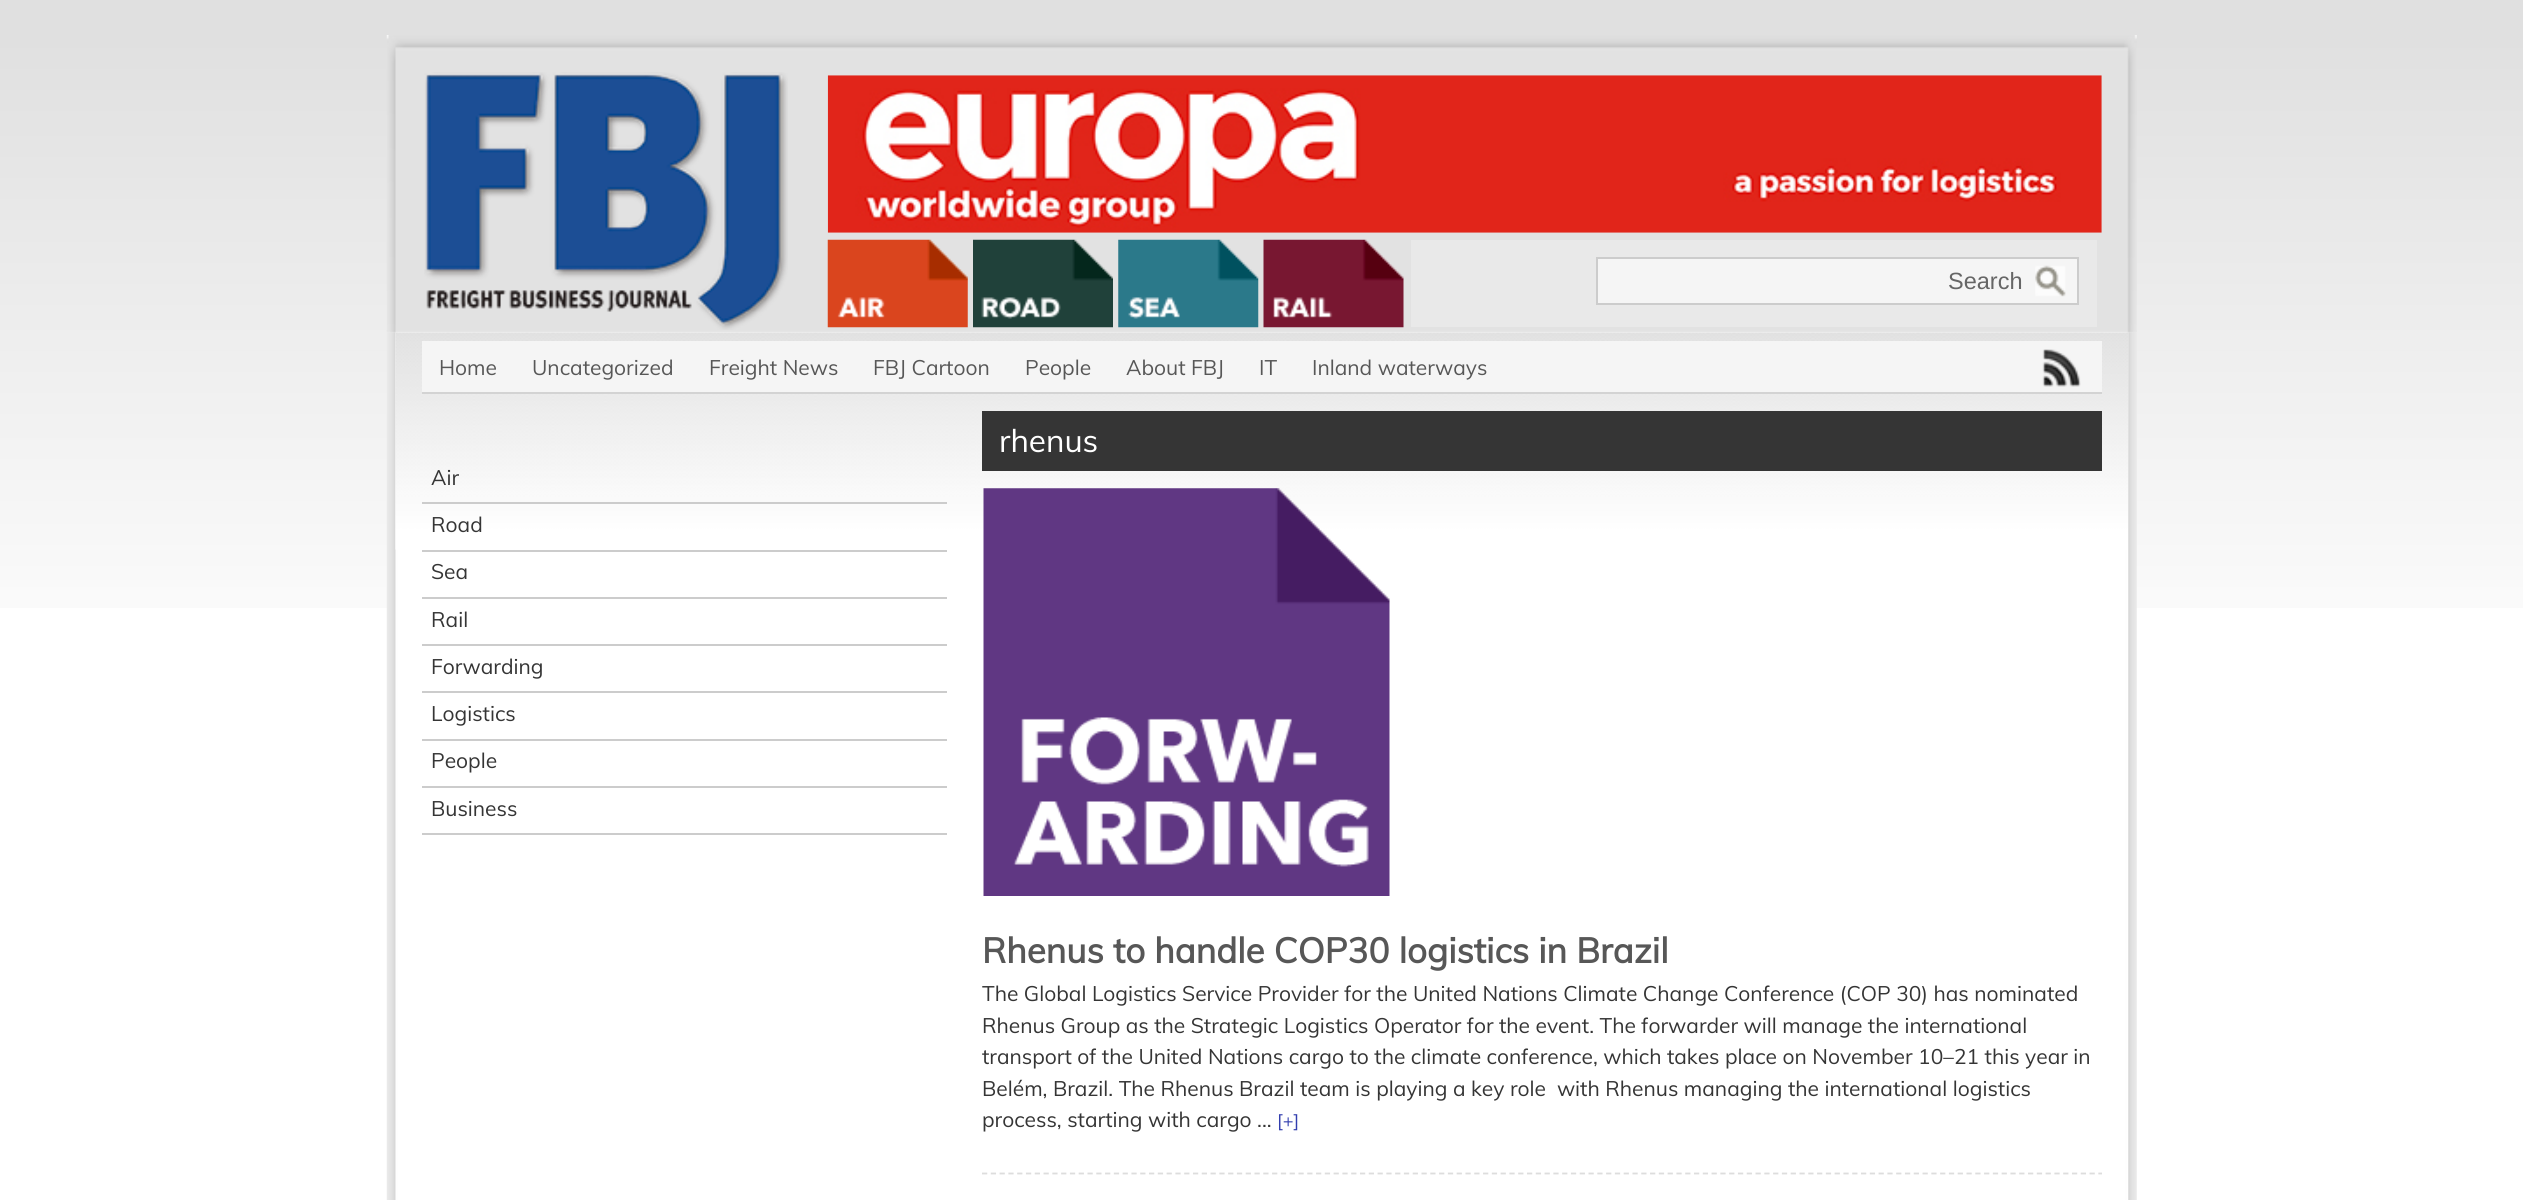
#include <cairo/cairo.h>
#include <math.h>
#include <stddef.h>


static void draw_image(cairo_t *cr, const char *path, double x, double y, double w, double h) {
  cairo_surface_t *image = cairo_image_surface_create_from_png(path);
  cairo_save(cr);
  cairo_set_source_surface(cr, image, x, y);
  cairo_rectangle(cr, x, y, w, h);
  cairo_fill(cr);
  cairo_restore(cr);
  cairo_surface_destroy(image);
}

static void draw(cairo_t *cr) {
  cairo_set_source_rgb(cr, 1, 1, 1);
  cairo_paint(cr);
  draw_image(cr, "images/1.png", 0, 0, 2523, 608);
  draw_image(cr, "images/2.png", 386, 35, 1751, 298);
  draw_image(cr, "images/3.png", 424, 72, 364, 258);
  draw_image(cr, "images/4.png", 827, 75, 1275, 158);
  draw_image(cr, "images/5.png", 827, 239, 141, 89);
  draw_image(cr, "images/6.png", 973, 239, 140, 89);
  draw_image(cr, "images/7.png", 1118, 239, 141, 89);
  draw_image(cr, "images/8.png", 1263, 239, 141, 89);
  cairo_set_source_rgb(cr, 233 / 255.0, 233 / 255.0, 233 / 255.0);
  cairo_rectangle(cr, 1411, 240, 686, 87);
  cairo_fill(cr);
  cairo_set_source_rgb(cr, 245 / 255.0, 245 / 255.0, 245 / 255.0);
  cairo_rectangle(cr, 1598, 259, 479, 44);
  cairo_fill(cr);
  draw_image(cr, "images/9.png", 2035, 265, 31, 32);
  cairo_rectangle(cr, 1597, 258, 481, 46);
  cairo_set_source_rgb(cr, 204 / 255.0, 204 / 255.0, 204 / 255.0);
  cairo_stroke(cr);
  draw_image(cr, "images/10.png", 386, 332, 1751, 868);
  cairo_set_source_rgb(cr, 1, 1, 1);
  cairo_rectangle(cr, 2127, 549, 1, 651);
  cairo_fill(cr);
  draw_image(cr, "images/11.png", 395, 332, 1733, 218);
  cairo_set_source_rgb(cr, 245 / 255.0, 245 / 255.0, 245 / 255.0);
  cairo_rectangle(cr, 422, 341, 1680, 51);
  cairo_fill(cr);
  cairo_set_source_rgb(cr, 211 / 255.0, 211 / 255.0, 211 / 255.0);
  cairo_rectangle(cr, 422, 392, 1680, 2);
  cairo_fill(cr);
  draw_image(cr, "images/12.png", 2042, 349, 39, 38);
  cairo_set_source_rgb(cr, 204 / 255.0, 204 / 255.0, 204 / 255.0);
  cairo_rectangle(cr, 422, 502, 525, 2);
  cairo_fill(cr);
  cairo_rectangle(cr, 422, 550, 525, 2);
  cairo_fill(cr);
  cairo_rectangle(cr, 422, 597, 525, 2);
  cairo_fill(cr);
  cairo_rectangle(cr, 422, 644, 525, 2);
  cairo_fill(cr);
  cairo_rectangle(cr, 422, 691, 525, 2);
  cairo_fill(cr);
  cairo_rectangle(cr, 422, 739, 525, 2);
  cairo_fill(cr);
  cairo_rectangle(cr, 422, 786, 525, 2);
  cairo_fill(cr);
  cairo_rectangle(cr, 422, 833, 525, 2);
  cairo_fill(cr);
  cairo_set_source_rgb(cr, 53 / 255.0, 53 / 255.0, 53 / 255.0);
  cairo_rectangle(cr, 982, 411, 1120, 60);
  cairo_fill(cr);
  draw_image(cr, "images/13.png", 983, 488, 407, 408);
  cairo_new_path(cr);
  cairo_move_to(cr, 982, 1173.5);
  cairo_line_to(cr, 2102, 1173.5);
  cairo_set_source_rgb(cr, 221 / 255.0, 221 / 255.0, 221 / 255.0);
  cairo_set_line_width(cr, 1.8);
  cairo_set_dash(cr, (double[]){5.25, 3.54}, 2, 0);
  cairo_stroke(cr);
  cairo_select_font_face(cr, "Liberation Sans", CAIRO_FONT_SLANT_NORMAL, CAIRO_FONT_WEIGHT_NORMAL);
  cairo_set_font_size(cr, 23.5);
  cairo_set_source_rgb(cr, 102 / 255.0, 102 / 255.0, 102 / 255.0);
  cairo_move_to(cr, 1948, 289);
  cairo_show_text(cr, "Search");
  cairo_select_font_face(cr, "Muli", CAIRO_FONT_SLANT_NORMAL, CAIRO_FONT_WEIGHT_NORMAL);
  cairo_set_font_size(cr, 21);
  cairo_set_source_rgb(cr, 87 / 255.0, 87 / 255.0, 87 / 255.0);
  cairo_move_to(cr, 439, 375);
  cairo_show_text(cr, "Home");
  cairo_move_to(cr, 532, 375);
  cairo_show_text(cr, "Uncategorized");
  cairo_move_to(cr, 709, 375);
  cairo_show_text(cr, "Freight News");
  cairo_move_to(cr, 873, 375);
  cairo_show_text(cr, "FBJ Cartoon");
  cairo_move_to(cr, 1025, 375);
  cairo_show_text(cr, "People");
  cairo_move_to(cr, 1126, 375);
  cairo_show_text(cr, "About FBJ");
  cairo_move_to(cr, 1259, 375);
  cairo_show_text(cr, "IT");
  cairo_move_to(cr, 1312, 375);
  cairo_show_text(cr, "Inland waterways");
  cairo_set_source_rgb(cr, 53 / 255.0, 53 / 255.0, 53 / 255.0);
  cairo_move_to(cr, 431, 485);
  cairo_show_text(cr, "Air");
  cairo_move_to(cr, 431, 532);
  cairo_show_text(cr, "Road");
  cairo_move_to(cr, 431, 579);
  cairo_show_text(cr, "Sea");
  cairo_move_to(cr, 431, 627);
  cairo_show_text(cr, "Rail");
  cairo_move_to(cr, 431, 674);
  cairo_show_text(cr, "Forwarding");
  cairo_move_to(cr, 431, 721);
  cairo_show_text(cr, "Logistics");
  cairo_move_to(cr, 431, 768);
  cairo_show_text(cr, "People");
  cairo_move_to(cr, 431, 816);
  cairo_show_text(cr, "Business");
  cairo_set_font_size(cr, 31.5);
  cairo_set_source_rgb(cr, 1, 1, 1);
  cairo_move_to(cr, 999, 452);
  cairo_show_text(cr, "rhenus");
  cairo_select_font_face(cr, "Muli", CAIRO_FONT_SLANT_NORMAL, CAIRO_FONT_WEIGHT_BOLD);
  cairo_set_font_size(cr, 35);
  cairo_set_source_rgb(cr, 87 / 255.0, 87 / 255.0, 87 / 255.0);
  cairo_move_to(cr, 982, 963);
  cairo_show_text(cr, "Rhenus to handle COP30 logistics in Brazil");
  cairo_select_font_face(cr, "Muli", CAIRO_FONT_SLANT_NORMAL, CAIRO_FONT_WEIGHT_NORMAL);
  cairo_set_font_size(cr, 21);
  cairo_set_source_rgb(cr, 53 / 255.0, 53 / 255.0, 53 / 255.0);
  cairo_move_to(cr, 982, 1001);
  cairo_show_text(cr, "The Global Logistics Service Provider for the United Nations Climate Change Conference (COP 30) has nominated");
  cairo_move_to(cr, 982, 1033);
  cairo_show_text(cr, "Rhenus Group as the Strategic Logistics Operator for the event. The forwarder will manage the international");
  cairo_move_to(cr, 982, 1064);
  cairo_show_text(cr, "transport of the United Nations cargo to the climate conference, which takes place on November 10–21 this year in");
  cairo_move_to(cr, 982, 1096);
  cairo_show_text(cr, "Belém, Brazil. The Rhenus Brazil team is playing a key role  with Rhenus managing the international logistics");
  cairo_move_to(cr, 982, 1127);
  cairo_show_text(cr, "process, starting with cargo ...");
  cairo_set_font_size(cr, 18);
  cairo_set_source_rgb(cr, 50 / 255.0, 62 / 255.0, 174 / 255.0);
  cairo_move_to(cr, 1277, 1127);
  cairo_show_text(cr, "[+]");
}

int main(void) {
  cairo_surface_t *surface = cairo_image_surface_create(CAIRO_FORMAT_RGB24, 2523, 1200);
  cairo_t *cr = cairo_create(surface);
  cairo_font_options_t *options = cairo_font_options_create();
  cairo_font_options_set_hint_metrics(options, CAIRO_HINT_METRICS_OFF);
  cairo_font_options_set_hint_style(options, CAIRO_HINT_STYLE_NONE);
  cairo_set_font_options(cr, options);
  cairo_set_miter_limit(cr, 4);
  draw(cr);
  cairo_surface_write_to_png(surface, "out.png");
  cairo_font_options_destroy(options);
  cairo_destroy(cr);
  cairo_surface_destroy(surface);
  return 0;
}
